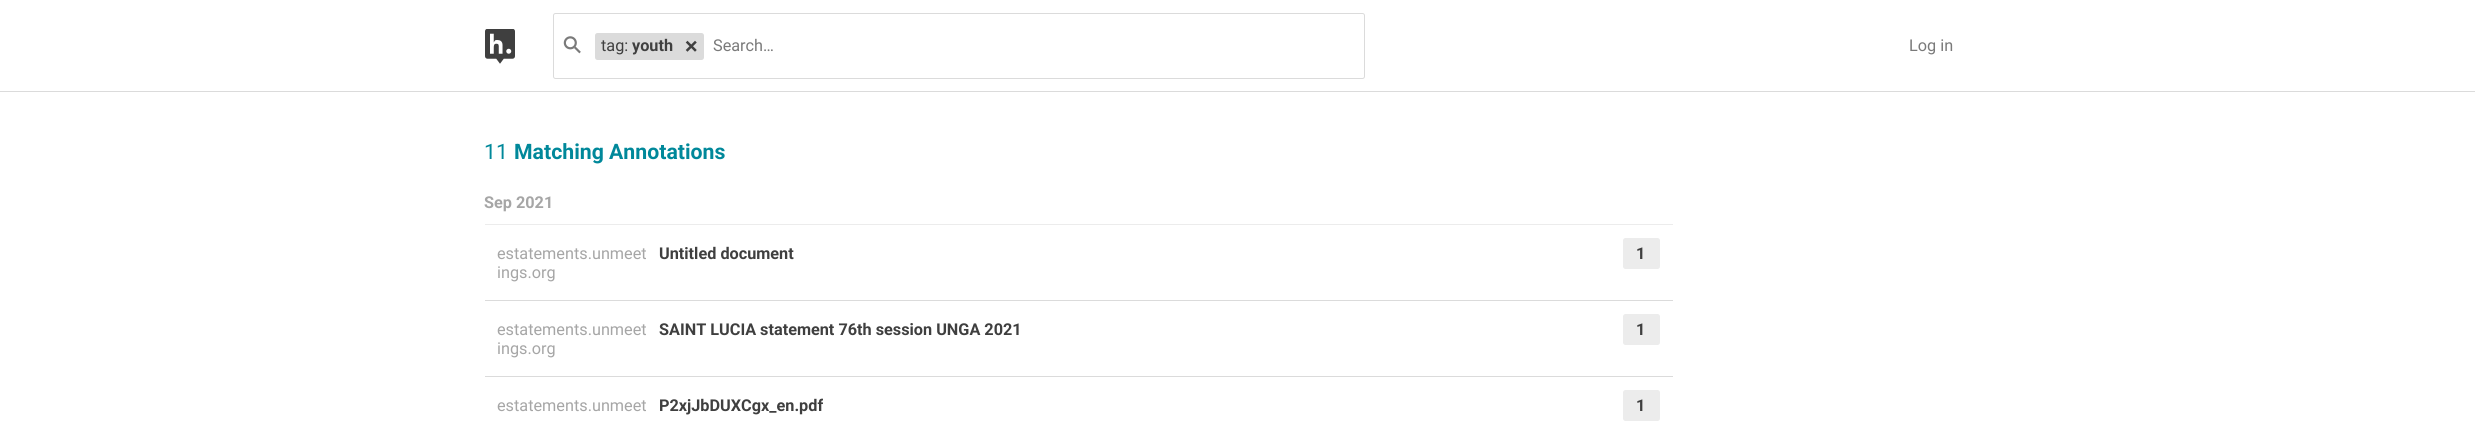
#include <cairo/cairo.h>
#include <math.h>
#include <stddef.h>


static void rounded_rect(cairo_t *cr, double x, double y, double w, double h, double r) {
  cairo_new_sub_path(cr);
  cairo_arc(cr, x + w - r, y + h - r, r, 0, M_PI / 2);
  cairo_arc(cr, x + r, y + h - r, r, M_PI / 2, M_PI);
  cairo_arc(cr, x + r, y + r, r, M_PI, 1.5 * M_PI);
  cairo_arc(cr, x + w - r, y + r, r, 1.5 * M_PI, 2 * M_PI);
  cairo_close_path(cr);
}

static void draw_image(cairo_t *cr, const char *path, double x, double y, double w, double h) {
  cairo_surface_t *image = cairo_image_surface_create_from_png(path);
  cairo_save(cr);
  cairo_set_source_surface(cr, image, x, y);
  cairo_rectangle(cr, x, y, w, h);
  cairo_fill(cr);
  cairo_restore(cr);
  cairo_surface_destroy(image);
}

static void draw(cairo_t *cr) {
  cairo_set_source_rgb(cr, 1, 1, 1);
  cairo_paint(cr);
  cairo_set_source_rgb(cr, 219 / 255.0, 219 / 255.0, 219 / 255.0);
  cairo_rectangle(cr, 0, 91, 2475, 1);
  cairo_fill(cr);
  draw_image(cr, "images/1.png", 485, 29, 30, 35);
  rounded_rect(cr, 553.5, 13.5, 811, 65, 2);
  cairo_set_line_width(cr, 1);
  cairo_stroke(cr);
  draw_image(cr, "images/2.png", 563, 36, 18, 18);
  rounded_rect(cr, 595, 33, 109, 27, 2.5);
  cairo_fill(cr);
  draw_image(cr, "images/3.png", 685, 40, 12, 12);
  cairo_set_source_rgb(cr, 236 / 255.0, 236 / 255.0, 236 / 255.0);
  cairo_rectangle(cr, 485, 224, 1188, 1);
  cairo_fill(cr);
  cairo_set_source_rgb(cr, 219 / 255.0, 219 / 255.0, 219 / 255.0);
  cairo_rectangle(cr, 485, 300, 1188, 1);
  cairo_fill(cr);
  cairo_set_source_rgb(cr, 236 / 255.0, 236 / 255.0, 236 / 255.0);
  rounded_rect(cr, 1623, 238, 37, 31, 2.5);
  cairo_fill(cr);
  cairo_set_source_rgb(cr, 219 / 255.0, 219 / 255.0, 219 / 255.0);
  cairo_rectangle(cr, 485, 376, 1188, 1);
  cairo_fill(cr);
  cairo_set_source_rgb(cr, 236 / 255.0, 236 / 255.0, 236 / 255.0);
  rounded_rect(cr, 1623, 314, 37, 31, 2.5);
  cairo_fill(cr);
  rounded_rect(cr, 1623, 390, 37, 31, 2.5);
  cairo_fill(cr);
  cairo_select_font_face(cr, "Roboto", CAIRO_FONT_SLANT_NORMAL, CAIRO_FONT_WEIGHT_NORMAL);
  cairo_set_font_size(cr, 16.25);
  cairo_set_source_rgb(cr, 63 / 255.0, 63 / 255.0, 63 / 255.0);
  cairo_move_to(cr, 601, 51);
  cairo_show_text(cr, "tag:");
  cairo_select_font_face(cr, "Roboto", CAIRO_FONT_SLANT_NORMAL, CAIRO_FONT_WEIGHT_BOLD);
  cairo_move_to(cr, 632, 51);
  cairo_show_text(cr, "youth");
  cairo_select_font_face(cr, "Roboto", CAIRO_FONT_SLANT_NORMAL, CAIRO_FONT_WEIGHT_NORMAL);
  cairo_set_source_rgb(cr, 122 / 255.0, 122 / 255.0, 122 / 255.0);
  cairo_move_to(cr, 713, 51);
  cairo_show_text(cr, "Search…");
  cairo_move_to(cr, 1909, 51);
  cairo_show_text(cr, "Log in");
  cairo_set_font_size(cr, 21.25);
  cairo_set_source_rgb(cr, 0, 136 / 255.0, 154 / 255.0);
  cairo_move_to(cr, 484, 159);
  cairo_show_text(cr, "11");
  cairo_select_font_face(cr, "Roboto", CAIRO_FONT_SLANT_NORMAL, CAIRO_FONT_WEIGHT_BOLD);
  cairo_move_to(cr, 514, 159);
  cairo_show_text(cr, "Matching Annotations");
  cairo_set_font_size(cr, 16.25);
  cairo_set_source_rgb(cr, 166 / 255.0, 166 / 255.0, 166 / 255.0);
  cairo_move_to(cr, 484, 208);
  cairo_show_text(cr, "Sep 2021");
  cairo_select_font_face(cr, "Roboto", CAIRO_FONT_SLANT_NORMAL, CAIRO_FONT_WEIGHT_NORMAL);
  cairo_move_to(cr, 497, 259);
  cairo_show_text(cr, "estatements.unmeet");
  cairo_move_to(cr, 497, 278);
  cairo_show_text(cr, "ings.org");
  cairo_select_font_face(cr, "Roboto", CAIRO_FONT_SLANT_NORMAL, CAIRO_FONT_WEIGHT_BOLD);
  cairo_set_source_rgb(cr, 63 / 255.0, 63 / 255.0, 63 / 255.0);
  cairo_move_to(cr, 659, 259);
  cairo_show_text(cr, "Untitled document");
  cairo_move_to(cr, 1636, 259);
  cairo_show_text(cr, "1");
  cairo_select_font_face(cr, "Roboto", CAIRO_FONT_SLANT_NORMAL, CAIRO_FONT_WEIGHT_NORMAL);
  cairo_set_source_rgb(cr, 166 / 255.0, 166 / 255.0, 166 / 255.0);
  cairo_move_to(cr, 497, 335);
  cairo_show_text(cr, "estatements.unmeet");
  cairo_move_to(cr, 497, 354);
  cairo_show_text(cr, "ings.org");
  cairo_select_font_face(cr, "Roboto", CAIRO_FONT_SLANT_NORMAL, CAIRO_FONT_WEIGHT_BOLD);
  cairo_set_source_rgb(cr, 63 / 255.0, 63 / 255.0, 63 / 255.0);
  cairo_move_to(cr, 659, 335);
  cairo_show_text(cr, "SAINT LUCIA statement 76th session UNGA 2021");
  cairo_move_to(cr, 1636, 335);
  cairo_show_text(cr, "1");
  cairo_select_font_face(cr, "Roboto", CAIRO_FONT_SLANT_NORMAL, CAIRO_FONT_WEIGHT_NORMAL);
  cairo_set_source_rgb(cr, 166 / 255.0, 166 / 255.0, 166 / 255.0);
  cairo_move_to(cr, 497, 411);
  cairo_show_text(cr, "estatements.unmeet");
  cairo_select_font_face(cr, "Roboto", CAIRO_FONT_SLANT_NORMAL, CAIRO_FONT_WEIGHT_BOLD);
  cairo_set_source_rgb(cr, 63 / 255.0, 63 / 255.0, 63 / 255.0);
  cairo_move_to(cr, 659, 411);
  cairo_show_text(cr, "P2xjJbDUXCgx_en.pdf");
  cairo_move_to(cr, 1636, 411);
  cairo_show_text(cr, "1");
}

int main(void) {
  cairo_surface_t *surface = cairo_image_surface_create(CAIRO_FORMAT_RGB24, 2475, 425);
  cairo_t *cr = cairo_create(surface);
  cairo_font_options_t *options = cairo_font_options_create();
  cairo_font_options_set_hint_metrics(options, CAIRO_HINT_METRICS_OFF);
  cairo_font_options_set_hint_style(options, CAIRO_HINT_STYLE_NONE);
  cairo_set_font_options(cr, options);
  cairo_set_miter_limit(cr, 4);
  draw(cr);
  cairo_surface_write_to_png(surface, "out.png");
  cairo_font_options_destroy(options);
  cairo_destroy(cr);
  cairo_surface_destroy(surface);
  return 0;
}
